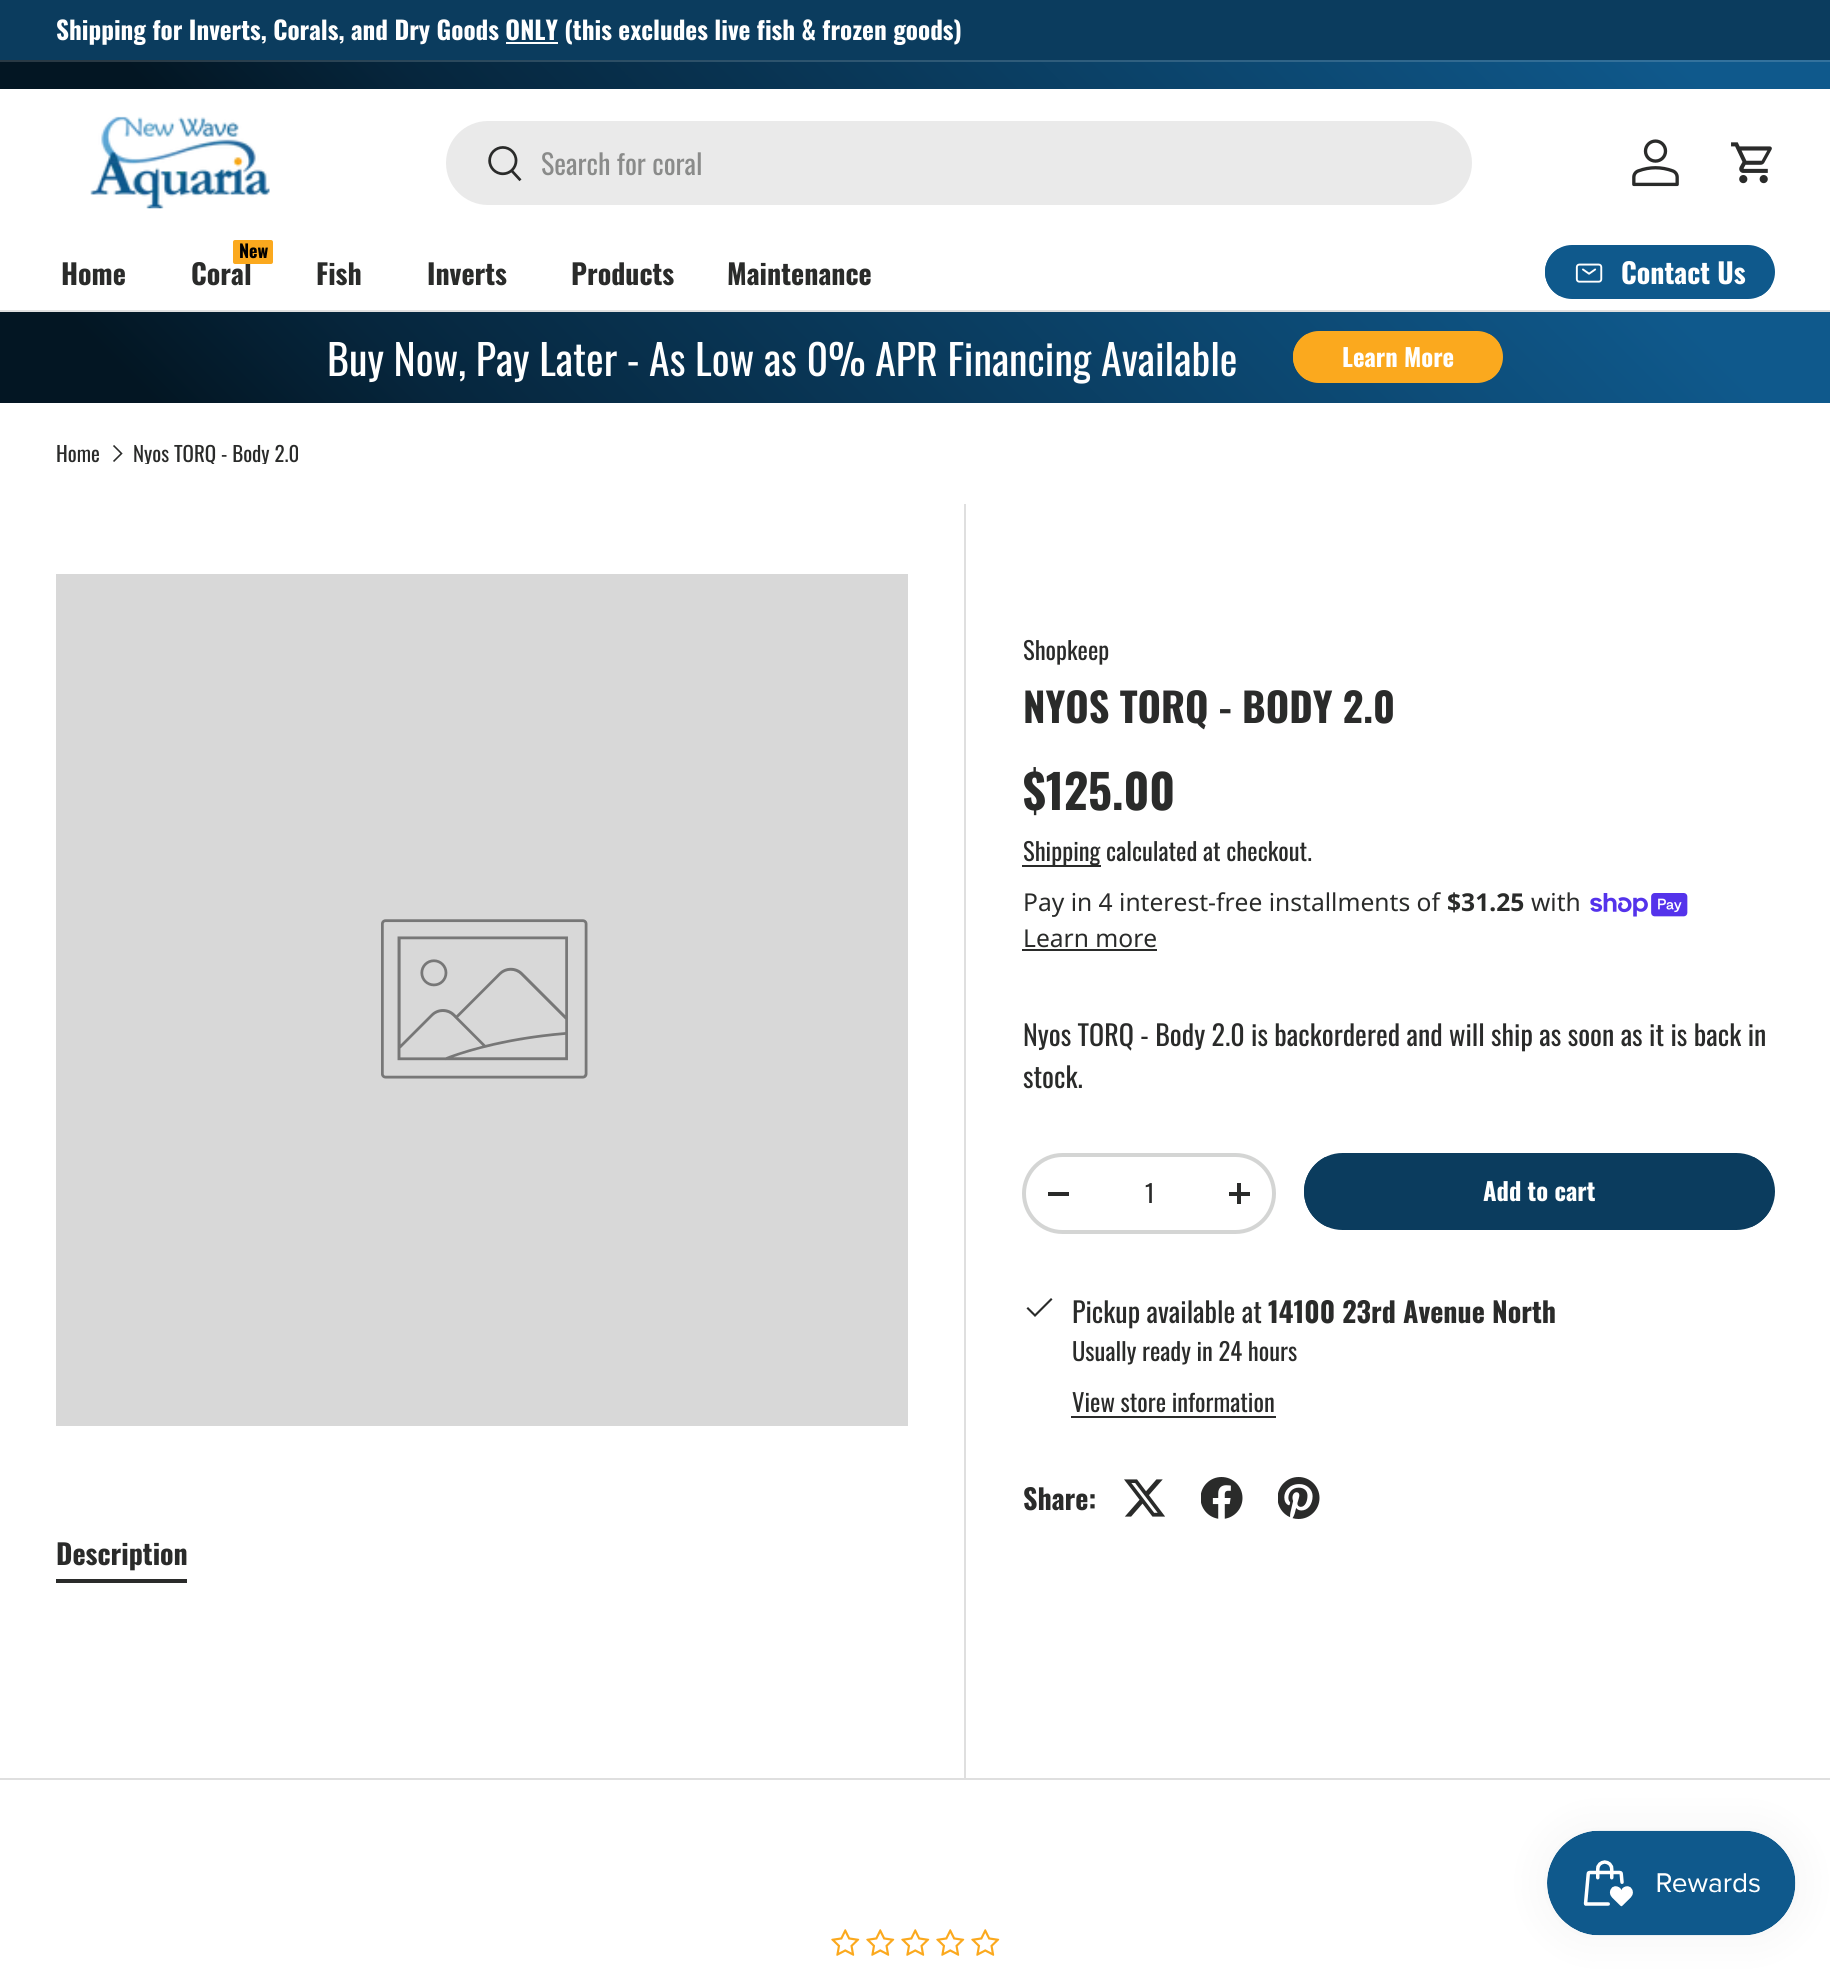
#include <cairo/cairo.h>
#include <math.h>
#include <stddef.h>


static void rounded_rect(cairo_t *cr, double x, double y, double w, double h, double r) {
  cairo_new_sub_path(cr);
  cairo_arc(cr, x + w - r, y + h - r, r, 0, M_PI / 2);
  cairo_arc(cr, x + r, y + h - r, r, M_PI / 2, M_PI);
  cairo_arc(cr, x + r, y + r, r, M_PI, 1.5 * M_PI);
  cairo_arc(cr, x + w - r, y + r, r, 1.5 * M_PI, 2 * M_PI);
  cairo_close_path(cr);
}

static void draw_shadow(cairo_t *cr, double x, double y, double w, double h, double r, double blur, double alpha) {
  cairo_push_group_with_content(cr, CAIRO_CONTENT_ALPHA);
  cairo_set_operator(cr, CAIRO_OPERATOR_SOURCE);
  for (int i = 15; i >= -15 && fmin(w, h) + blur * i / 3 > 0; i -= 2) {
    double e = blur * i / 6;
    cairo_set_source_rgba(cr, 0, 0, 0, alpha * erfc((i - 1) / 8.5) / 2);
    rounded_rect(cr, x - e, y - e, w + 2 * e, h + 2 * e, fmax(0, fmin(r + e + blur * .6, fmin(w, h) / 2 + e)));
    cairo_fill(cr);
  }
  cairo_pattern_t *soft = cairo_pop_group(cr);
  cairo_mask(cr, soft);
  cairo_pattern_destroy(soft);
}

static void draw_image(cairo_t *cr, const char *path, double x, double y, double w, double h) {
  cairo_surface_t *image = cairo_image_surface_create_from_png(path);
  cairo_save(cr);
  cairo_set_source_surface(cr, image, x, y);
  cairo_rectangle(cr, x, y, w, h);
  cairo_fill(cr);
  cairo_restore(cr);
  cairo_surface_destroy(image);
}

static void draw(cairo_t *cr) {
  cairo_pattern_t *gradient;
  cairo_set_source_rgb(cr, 1, 1, 1);
  cairo_paint(cr);
  cairo_set_source_rgb(cr, 11 / 255.0, 60 / 255.0, 94 / 255.0);
  cairo_rectangle(cr, 0, 0, 1830, 60);
  cairo_fill(cr);
  cairo_set_source_rgb(cr, 1, 1, 1);
  cairo_rectangle(cr, 506, 42, 52, 2);
  cairo_fill(cr);
  gradient = cairo_pattern_create_linear(1380, -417, 451, 512);
  cairo_pattern_add_color_stop_rgba(gradient, 0.08, 51 / 255.0, 114 / 255.0, 157 / 255.0, 1);
  cairo_pattern_add_color_stop_rgba(gradient, 0.77, 43 / 255.0, 71 / 255.0, 90 / 255.0, 1);
  cairo_pattern_add_color_stop_rgba(gradient, 0.92, 41 / 255.0, 57 / 255.0, 68 / 255.0, 1);
  cairo_set_source(cr, gradient);
  cairo_pattern_destroy(gradient);
  cairo_rectangle(cr, 0, 60, 1830, 1);
  cairo_fill(cr);
  gradient = cairo_pattern_create_linear(1380, -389, 451, 540);
  cairo_pattern_add_color_stop_rgba(gradient, 0.08, 15 / 255.0, 89 / 255.0, 140 / 255.0, 1);
  cairo_pattern_add_color_stop_rgba(gradient, 0.77, 6 / 255.0, 38 / 255.0, 61 / 255.0, 1);
  cairo_pattern_add_color_stop_rgba(gradient, 0.92, 3 / 255.0, 22 / 255.0, 35 / 255.0, 1);
  cairo_set_source(cr, gradient);
  cairo_pattern_destroy(gradient);
  cairo_rectangle(cr, 0, 62, 1830, 27);
  cairo_fill(cr);
  gradient = cairo_pattern_create_linear(1380, -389, 451, 540);
  cairo_pattern_add_color_stop_rgba(gradient, 0.08, 51 / 255.0, 114 / 255.0, 157 / 255.0, 1);
  cairo_pattern_add_color_stop_rgba(gradient, 0.77, 43 / 255.0, 71 / 255.0, 90 / 255.0, 1);
  cairo_pattern_add_color_stop_rgba(gradient, 0.92, 41 / 255.0, 57 / 255.0, 68 / 255.0, 1);
  cairo_set_source(cr, gradient);
  cairo_pattern_destroy(gradient);
  cairo_rectangle(cr, 0, 61, 1830, 1);
  cairo_fill(cr);
  cairo_set_source_rgb(cr, 223 / 255.0, 223 / 255.0, 223 / 255.0);
  cairo_rectangle(cr, 0, 310, 1830, 2);
  cairo_fill(cr);
  draw_image(cr, "images/1.png", 90, 116, 180, 93);
  cairo_set_source_rgb(cr, 234 / 255.0, 234 / 255.0, 234 / 255.0);
  rounded_rect(cr, 446, 121, 1026, 84, 42);
  cairo_fill(cr);
  draw_image(cr, "images/2.png", 488, 146, 34, 36);
  draw_image(cr, "images/3.png", 1632, 139, 47, 48);
  draw_image(cr, "images/4.png", 1731, 142, 41, 42);
  cairo_save(cr);
  rounded_rect(cr, 1545, 245, 230, 54, 27);
  cairo_clip(cr);
  gradient = cairo_pattern_create_linear(1118, 192, 1757, 352);
  cairo_pattern_add_color_stop_rgba(gradient, 0.6, 55 / 255.0, 122 / 255.0, 169 / 255.0, 1);
  cairo_pattern_add_color_stop_rgba(gradient, 0.6, 15 / 255.0, 89 / 255.0, 140 / 255.0, 1);
  cairo_pattern_add_color_stop_rgba(gradient, 1, 15 / 255.0, 89 / 255.0, 140 / 255.0, 1);
  cairo_set_source(cr, gradient);
  cairo_pattern_destroy(gradient);
  cairo_rectangle(cr, 1545, 249, 226, 47);
  cairo_fill(cr);
  cairo_restore(cr);
  rounded_rect(cr, 1547, 247, 226, 50, 25);
  cairo_set_source_rgb(cr, 15 / 255.0, 89 / 255.0, 140 / 255.0);
  cairo_set_line_width(cr, 4);
  cairo_stroke(cr);
  draw_image(cr, "images/5.png", 1575, 263, 28, 20);
  gradient = cairo_pattern_create_linear(1396, -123, 435, 837);
  cairo_pattern_add_color_stop_rgba(gradient, 0.08, 15 / 255.0, 89 / 255.0, 140 / 255.0, 1);
  cairo_pattern_add_color_stop_rgba(gradient, 0.77, 6 / 255.0, 38 / 255.0, 61 / 255.0, 1);
  cairo_pattern_add_color_stop_rgba(gradient, 0.92, 3 / 255.0, 22 / 255.0, 35 / 255.0, 1);
  cairo_set_source(cr, gradient);
  cairo_pattern_destroy(gradient);
  cairo_rectangle(cr, 0, 312, 1830, 91);
  cairo_fill(cr);
  cairo_save(cr);
  rounded_rect(cr, 1293, 331, 210, 52, 26);
  cairo_clip(cr);
  gradient = cairo_pattern_create_linear(903, 284, 1487, 430);
  cairo_pattern_add_color_stop_rgba(gradient, 0.6, 252 / 255.0, 188 / 255.0, 79 / 255.0, 1);
  cairo_pattern_add_color_stop_rgba(gradient, 0.6, 251 / 255.0, 169 / 255.0, 30 / 255.0, 1);
  cairo_pattern_add_color_stop_rgba(gradient, 1, 251 / 255.0, 169 / 255.0, 30 / 255.0, 1);
  cairo_set_source(cr, gradient);
  cairo_pattern_destroy(gradient);
  cairo_rectangle(cr, 1293, 334, 207, 46);
  cairo_fill(cr);
  cairo_restore(cr);
  rounded_rect(cr, 1295, 333, 206, 48, 24);
  cairo_set_source_rgb(cr, 251 / 255.0, 169 / 255.0, 30 / 255.0);
  cairo_stroke(cr);
  cairo_new_path(cr);
  cairo_move_to(cr, 113.5, 445.5);
  cairo_line_to(cr, 121.5, 453.5);
  cairo_line_to(cr, 113.5, 461.5);
  cairo_set_source_rgb(cr, 42 / 255.0, 43 / 255.0, 42 / 255.0);
  cairo_set_line_width(cr, 1.6);
  cairo_stroke(cr);
  cairo_set_source_rgb(cr, 216 / 255.0, 216 / 255.0, 216 / 255.0);
  cairo_rectangle(cr, 56, 574, 852, 852);
  cairo_fill(cr);
  draw_image(cr, "images/6.png", 381, 919, 207, 160);
  cairo_set_source_rgb(cr, 223 / 255.0, 223 / 255.0, 223 / 255.0);
  cairo_rectangle(cr, 0, 1778, 1830, 2);
  cairo_fill(cr);
  cairo_rectangle(cr, 964, 504, 2, 1276);
  cairo_fill(cr);
  cairo_set_source_rgb(cr, 42 / 255.0, 43 / 255.0, 42 / 255.0);
  cairo_rectangle(cr, 1022, 865, 79, 2);
  cairo_fill(cr);
  draw_image(cr, "images/7.png", 1590, 893, 98, 24);
  cairo_rectangle(cr, 1022, 949, 135, 2);
  cairo_fill(cr);
  rounded_rect(cr, 1024, 1155, 250, 77, 38.5);
  cairo_set_source_rgb(cr, 212 / 255.0, 213 / 255.0, 212 / 255.0);
  cairo_set_line_width(cr, 4);
  cairo_stroke(cr);
  cairo_set_source_rgb(cr, 42 / 255.0, 43 / 255.0, 42 / 255.0);
  cairo_rectangle(cr, 1048, 1192, 21, 4);
  cairo_fill(cr);
  cairo_rectangle(cr, 1229, 1192, 21, 4);
  cairo_fill(cr);
  cairo_rectangle(cr, 1237, 1183, 4, 21);
  cairo_fill(cr);
  cairo_save(cr);
  rounded_rect(cr, 1304, 1153, 471, 77, 38.5);
  cairo_clip(cr);
  gradient = cairo_pattern_create_linear(412, 1026, 1739, 1357);
  cairo_pattern_add_color_stop_rgba(gradient, 0.6, 52 / 255.0, 97 / 255.0, 129 / 255.0, 1);
  cairo_pattern_add_color_stop_rgba(gradient, 0.6, 11 / 255.0, 60 / 255.0, 94 / 255.0, 1);
  cairo_pattern_add_color_stop_rgba(gradient, 1, 11 / 255.0, 60 / 255.0, 94 / 255.0, 1);
  cairo_set_source(cr, gradient);
  cairo_pattern_destroy(gradient);
  cairo_rectangle(cr, 1304, 1157, 467, 70);
  cairo_fill(cr);
  cairo_restore(cr);
  rounded_rect(cr, 1306, 1155, 467, 73, 36.5);
  cairo_set_source_rgb(cr, 11 / 255.0, 60 / 255.0, 94 / 255.0);
  cairo_stroke(cr);
  cairo_set_source_rgb(cr, 42 / 255.0, 43 / 255.0, 42 / 255.0);
  cairo_new_path(cr);
  cairo_move_to(cr, 1051, 1298);
  cairo_line_to(cr, 1052.5, 1299.5);
  cairo_line_to(cr, 1035, 1317);
  cairo_line_to(cr, 1026.5, 1308.5);
  cairo_line_to(cr, 1028, 1307);
  cairo_line_to(cr, 1035, 1314);
  cairo_close_path(cr);
  cairo_fill(cr);
  cairo_rectangle(cr, 1071, 1416, 205, 2);
  cairo_fill(cr);
  draw_image(cr, "images/8.png", 1124, 1479, 41, 38);
  draw_image(cr, "images/9.png", 1201, 1477, 42, 42);
  draw_image(cr, "images/10.png", 1278, 1477, 42, 42);
  cairo_rectangle(cr, 56, 1579, 131, 4);
  cairo_fill(cr);
  draw_image(cr, "images/11.png", 831, 1929, 29, 27);
  draw_image(cr, "images/11.png", 866, 1929, 29, 27);
  draw_image(cr, "images/11.png", 901, 1929, 29, 27);
  draw_image(cr, "images/11.png", 936, 1929, 29, 27);
  draw_image(cr, "images/11.png", 971, 1929, 29, 27);
  cairo_set_source_rgb(cr, 0, 0, 0);
  draw_shadow(cr, 1547, 1831, 249, 105, 52.5, 22, 0.05);
  draw_image(cr, "images/12.png", 1547, 1830, 249, 106);
  cairo_select_font_face(cr, "Oswald", CAIRO_FONT_SLANT_NORMAL, CAIRO_FONT_WEIGHT_BOLD);
  cairo_set_font_size(cr, 25.2);
  cairo_set_source_rgb(cr, 1, 1, 1);
  cairo_move_to(cr, 56, 40);
  cairo_show_text(cr, "Shipping for Inverts, Corals, and Dry Goods ONLY (this excludes live fish & frozen goods)");
  cairo_select_font_face(cr, "Oswald", CAIRO_FONT_SLANT_NORMAL, CAIRO_FONT_WEIGHT_NORMAL);
  cairo_set_font_size(cr, 28);
  cairo_set_source_rgb(cr, 138 / 255.0, 139 / 255.0, 138 / 255.0);
  cairo_move_to(cr, 541, 175);
  cairo_show_text(cr, "Search for coral");
  cairo_select_font_face(cr, "Oswald", CAIRO_FONT_SLANT_NORMAL, CAIRO_FONT_WEIGHT_BOLD);
  cairo_set_source_rgb(cr, 42 / 255.0, 43 / 255.0, 42 / 255.0);
  cairo_move_to(cr, 61, 285);
  cairo_show_text(cr, "Home");
  cairo_move_to(cr, 191, 285);
  cairo_show_text(cr, "Coral");
  cairo_set_source_rgb(cr, 251 / 255.0, 169 / 255.0, 30 / 255.0);
  rounded_rect(cr, 233, 240, 40, 24, 2);
  cairo_fill(cr);
  cairo_set_font_size(cr, 18);
  cairo_set_source_rgb(cr, 0, 0, 0);
  cairo_move_to(cr, 239, 258);
  cairo_show_text(cr, "New");
  cairo_set_font_size(cr, 28);
  cairo_set_source_rgb(cr, 42 / 255.0, 43 / 255.0, 42 / 255.0);
  cairo_move_to(cr, 316, 285);
  cairo_show_text(cr, "Fish");
  cairo_move_to(cr, 427, 285);
  cairo_show_text(cr, "Inverts");
  cairo_move_to(cr, 571, 285);
  cairo_show_text(cr, "Products");
  cairo_move_to(cr, 727, 285);
  cairo_show_text(cr, "Maintenance");
  cairo_set_source_rgb(cr, 1, 1, 1);
  cairo_move_to(cr, 1621, 284);
  cairo_show_text(cr, "Contact Us");
  cairo_select_font_face(cr, "Oswald", CAIRO_FONT_SLANT_NORMAL, CAIRO_FONT_WEIGHT_NORMAL);
  cairo_set_font_size(cr, 42);
  cairo_move_to(cr, 327, 376);
  cairo_show_text(cr, "Buy Now, Pay Later - As Low as 0% APR Financing Available");
  cairo_select_font_face(cr, "Oswald", CAIRO_FONT_SLANT_NORMAL, CAIRO_FONT_WEIGHT_BOLD);
  cairo_set_font_size(cr, 24.6);
  cairo_move_to(cr, 1342, 367);
  cairo_show_text(cr, "Learn More");
  cairo_select_font_face(cr, "Oswald", CAIRO_FONT_SLANT_NORMAL, CAIRO_FONT_WEIGHT_NORMAL);
  cairo_set_font_size(cr, 21);
  cairo_set_source_rgb(cr, 42 / 255.0, 43 / 255.0, 42 / 255.0);
  cairo_move_to(cr, 56, 462);
  cairo_show_text(cr, "Home");
  cairo_save(cr);
  cairo_rectangle(cr, 133, 443, 166, 21);
  cairo_clip(cr);
  cairo_move_to(cr, 133, 462);
  cairo_show_text(cr, "Nyos TORQ - Body 2.0");
  cairo_restore(cr);
  cairo_set_font_size(cr, 24.6);
  cairo_move_to(cr, 1023, 660);
  cairo_show_text(cr, "Shopkeep");
  cairo_select_font_face(cr, "Oswald", CAIRO_FONT_SLANT_NORMAL, CAIRO_FONT_WEIGHT_BOLD);
  cairo_set_font_size(cr, 40.1);
  cairo_move_to(cr, 1023, 723);
  cairo_show_text(cr, "NYOS TORQ - BODY 2.0");
  cairo_set_font_size(cr, 47);
  cairo_move_to(cr, 1023, 810);
  cairo_show_text(cr, "$125.00");
  cairo_select_font_face(cr, "Oswald", CAIRO_FONT_SLANT_NORMAL, CAIRO_FONT_WEIGHT_NORMAL);
  cairo_set_font_size(cr, 24.6);
  cairo_move_to(cr, 1023, 861);
  cairo_show_text(cr, "Shipping calculated at checkout.");
  cairo_select_font_face(cr, "Noto Sans", CAIRO_FONT_SLANT_NORMAL, CAIRO_FONT_WEIGHT_NORMAL);
  cairo_move_to(cr, 1023, 911);
  cairo_show_text(cr, "Pay in 4 interest-free installments of");
  cairo_select_font_face(cr, "Noto Sans", CAIRO_FONT_SLANT_NORMAL, CAIRO_FONT_WEIGHT_BOLD);
  cairo_move_to(cr, 1447, 911);
  cairo_show_text(cr, "$31.25");
  cairo_select_font_face(cr, "Noto Sans", CAIRO_FONT_SLANT_NORMAL, CAIRO_FONT_WEIGHT_NORMAL);
  cairo_move_to(cr, 1531, 911);
  cairo_show_text(cr, "with");
  cairo_move_to(cr, 1023, 947);
  cairo_show_text(cr, "Learn more");
  cairo_select_font_face(cr, "Oswald", CAIRO_FONT_SLANT_NORMAL, CAIRO_FONT_WEIGHT_NORMAL);
  cairo_set_font_size(cr, 28);
  cairo_move_to(cr, 1023, 1046);
  cairo_show_text(cr, "Nyos TORQ - Body 2.0 is backordered and will ship as soon as it is back in");
  cairo_move_to(cr, 1023, 1088);
  cairo_show_text(cr, "stock.");
  cairo_set_font_size(cr, 24.6);
  cairo_move_to(cr, 1145, 1203);
  cairo_show_text(cr, "1");
  cairo_select_font_face(cr, "Oswald", CAIRO_FONT_SLANT_NORMAL, CAIRO_FONT_WEIGHT_BOLD);
  cairo_set_source_rgb(cr, 1, 1, 1);
  cairo_move_to(cr, 1483, 1201);
  cairo_show_text(cr, "Add to cart");
  cairo_select_font_face(cr, "Oswald", CAIRO_FONT_SLANT_NORMAL, CAIRO_FONT_WEIGHT_NORMAL);
  cairo_set_font_size(cr, 28);
  cairo_set_source_rgb(cr, 42 / 255.0, 43 / 255.0, 42 / 255.0);
  cairo_move_to(cr, 1072, 1323);
  cairo_show_text(cr, "Pickup available at");
  cairo_select_font_face(cr, "Oswald", CAIRO_FONT_SLANT_NORMAL, CAIRO_FONT_WEIGHT_BOLD);
  cairo_move_to(cr, 1268, 1323);
  cairo_show_text(cr, "14100 23rd Avenue North");
  cairo_select_font_face(cr, "Oswald", CAIRO_FONT_SLANT_NORMAL, CAIRO_FONT_WEIGHT_NORMAL);
  cairo_set_font_size(cr, 24.6);
  cairo_move_to(cr, 1072, 1361);
  cairo_show_text(cr, "Usually ready in 24 hours");
  cairo_move_to(cr, 1072, 1412);
  cairo_show_text(cr, "View store information");
  cairo_select_font_face(cr, "Oswald", CAIRO_FONT_SLANT_NORMAL, CAIRO_FONT_WEIGHT_BOLD);
  cairo_set_font_size(cr, 28);
  cairo_move_to(cr, 1023, 1510);
  cairo_show_text(cr, "Share:");
  cairo_move_to(cr, 56, 1565);
  cairo_show_text(cr, "Description");
}

int main(void) {
  cairo_surface_t *surface = cairo_image_surface_create(CAIRO_FORMAT_RGB24, 1830, 1970);
  cairo_t *cr = cairo_create(surface);
  cairo_font_options_t *options = cairo_font_options_create();
  cairo_font_options_set_hint_metrics(options, CAIRO_HINT_METRICS_OFF);
  cairo_font_options_set_hint_style(options, CAIRO_HINT_STYLE_NONE);
  cairo_set_font_options(cr, options);
  cairo_set_miter_limit(cr, 4);
  draw(cr);
  cairo_surface_write_to_png(surface, "out.png");
  cairo_font_options_destroy(options);
  cairo_destroy(cr);
  cairo_surface_destroy(surface);
  return 0;
}
